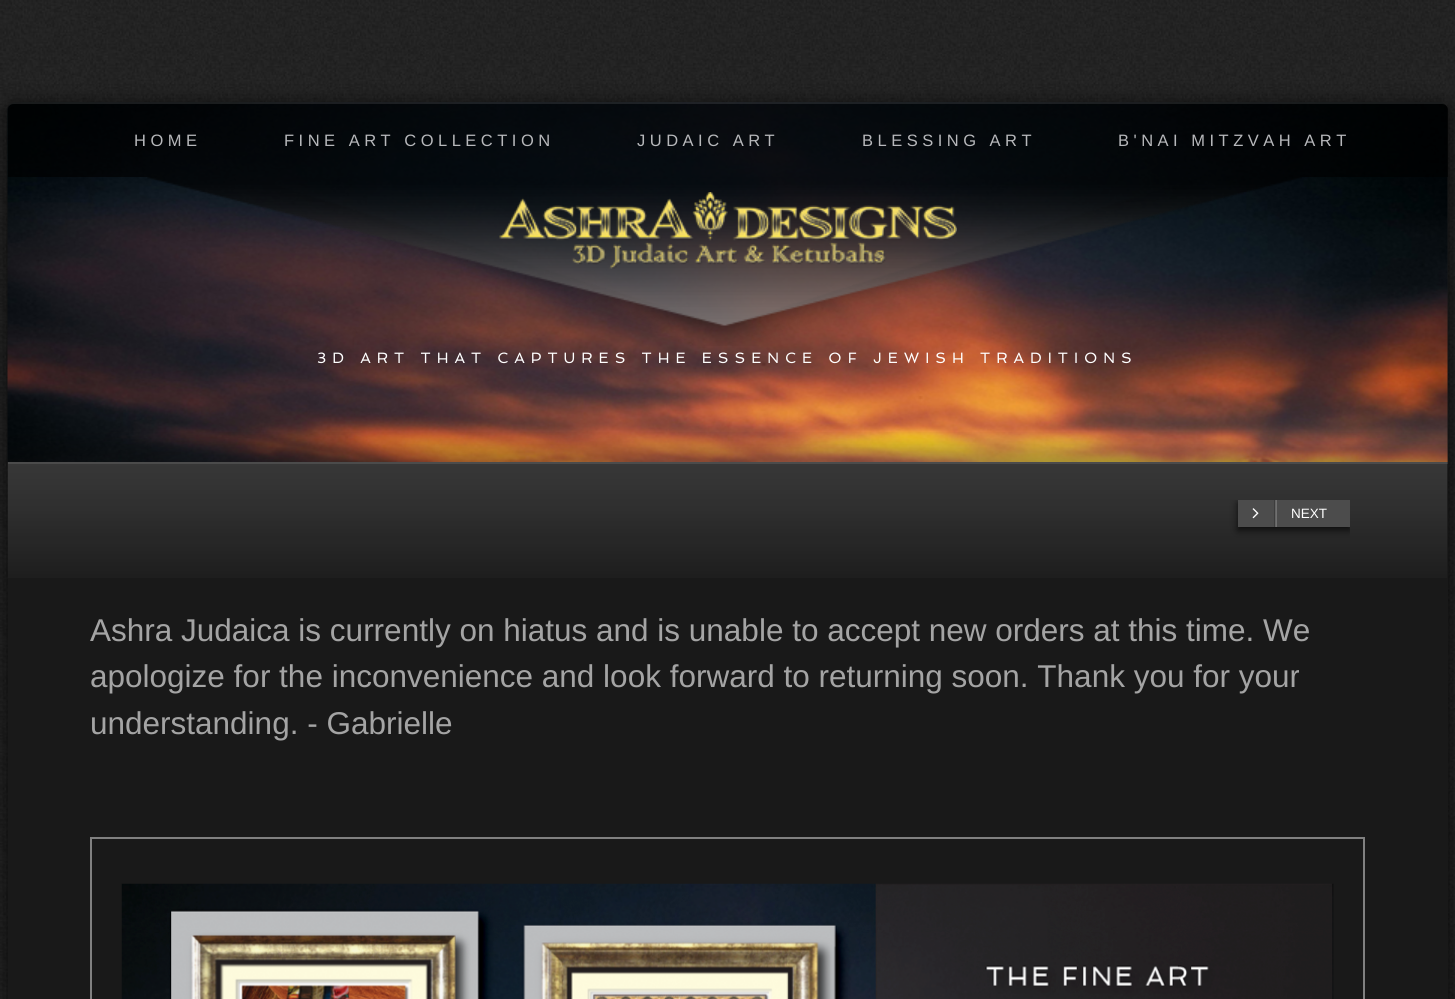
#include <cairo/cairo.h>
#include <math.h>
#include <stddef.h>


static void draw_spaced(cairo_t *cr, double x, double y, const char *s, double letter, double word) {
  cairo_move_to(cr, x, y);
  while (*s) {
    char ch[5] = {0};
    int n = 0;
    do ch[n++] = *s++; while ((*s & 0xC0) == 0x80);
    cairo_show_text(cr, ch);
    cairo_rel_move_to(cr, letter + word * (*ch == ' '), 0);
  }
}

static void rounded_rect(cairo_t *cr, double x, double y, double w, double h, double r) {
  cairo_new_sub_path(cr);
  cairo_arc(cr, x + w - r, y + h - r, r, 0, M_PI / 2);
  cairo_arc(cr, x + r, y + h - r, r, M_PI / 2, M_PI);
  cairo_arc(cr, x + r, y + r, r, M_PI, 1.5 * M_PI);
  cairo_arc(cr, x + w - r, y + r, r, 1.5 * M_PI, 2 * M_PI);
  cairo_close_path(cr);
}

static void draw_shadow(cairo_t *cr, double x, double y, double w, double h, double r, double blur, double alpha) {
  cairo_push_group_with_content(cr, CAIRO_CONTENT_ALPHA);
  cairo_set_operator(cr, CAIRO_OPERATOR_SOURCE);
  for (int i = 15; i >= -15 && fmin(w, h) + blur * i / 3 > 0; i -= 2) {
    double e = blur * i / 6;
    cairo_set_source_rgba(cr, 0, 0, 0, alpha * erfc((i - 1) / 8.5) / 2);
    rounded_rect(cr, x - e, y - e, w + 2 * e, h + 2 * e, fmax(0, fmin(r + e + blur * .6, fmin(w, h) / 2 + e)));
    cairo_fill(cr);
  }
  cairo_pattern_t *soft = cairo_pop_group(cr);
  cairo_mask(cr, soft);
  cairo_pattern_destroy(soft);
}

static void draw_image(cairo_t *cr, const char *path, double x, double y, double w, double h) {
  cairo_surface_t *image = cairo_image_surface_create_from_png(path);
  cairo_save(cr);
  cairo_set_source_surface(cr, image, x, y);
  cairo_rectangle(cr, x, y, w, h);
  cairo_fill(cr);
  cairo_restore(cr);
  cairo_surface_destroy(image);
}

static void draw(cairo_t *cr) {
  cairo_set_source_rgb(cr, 1, 1, 1);
  cairo_paint(cr);
  draw_image(cr, "images/1.png", 0, 0, 1455, 999);
  cairo_set_source_rgb(cr, 0, 0, 0);
  draw_shadow(cr, 8, 107, 1440, 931, 6, 11, 0.8);
  cairo_set_source_rgb(cr, 25 / 255.0, 25 / 255.0, 25 / 255.0);
  rounded_rect(cr, 8, 102, 1440, 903, 6);
  cairo_fill(cr);
  draw_image(cr, "images/2.png", 7, 102, 1441, 360);
  draw_image(cr, "images/3.png", 8, 432, 1440, 30);
  cairo_set_source_rgba(cr, 0, 0, 0, 0.66);
  cairo_new_path(cr);
  cairo_move_to(cr, 14, 102);
  cairo_line_to(cr, 1442, 102);
  cairo_curve_to(cr, 1445.5, 102, 1448, 104.5, 1448, 108);
  cairo_line_to(cr, 1448, 177);
  cairo_line_to(cr, 8, 177);
  cairo_line_to(cr, 8, 108);
  cairo_curve_to(cr, 8, 104.5, 10.5, 102, 14, 102);
  cairo_close_path(cr);
  cairo_fill(cr);
  cairo_set_source_rgba(cr, 1, 1, 1, 0.1);
  cairo_new_path(cr);
  cairo_move_to(cr, 14, 104);
  cairo_line_to(cr, 1442, 104);
  cairo_curve_to(cr, 1445, 104, 1448, 106, 1448, 110);
  cairo_curve_to(cr, 1448, 106, 1447, 102, 1442, 102);
  cairo_line_to(cr, 14, 102);
  cairo_curve_to(cr, 9, 102, 8, 106, 8, 110);
  cairo_curve_to(cr, 8, 106, 10, 104, 14, 104);
  cairo_close_path(cr);
  cairo_fill(cr);
  draw_image(cr, "images/4.png", 147, 177, 1155, 169);
  draw_image(cr, "images/5.png", 499, 192, 458, 77);
  draw_image(cr, "images/6.png", 7, 462, 1441, 116);
  cairo_rectangle(cr, 8, 462, 1440, 2);
  cairo_fill(cr);
  cairo_save(cr);
  cairo_rectangle(cr, 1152, 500, 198, 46);
  cairo_clip(cr);
  cairo_set_source_rgb(cr, 0, 0, 0);
  draw_shadow(cr, 1238, 503, 112, 27, 0, 4, 0.75);
  cairo_restore(cr);
  cairo_set_source_rgb(cr, 76 / 255.0, 76 / 255.0, 76 / 255.0);
  cairo_rectangle(cr, 1238, 500, 112, 27);
  cairo_fill(cr);
  cairo_set_source_rgb(cr, 61 / 255.0, 61 / 255.0, 61 / 255.0);
  cairo_rectangle(cr, 1274, 500, 2, 27);
  cairo_fill(cr);
  draw_image(cr, "images/7.png", 1252, 508, 7, 11);
  cairo_set_source_rgba(cr, 1, 1, 1, 0.2);
  cairo_rectangle(cr, 1275, 500, 2, 27);
  cairo_fill(cr);
  cairo_rectangle(cr, 91, 838, 1273, 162);
  cairo_set_source_rgb(cr, 128 / 255.0, 128 / 255.0, 128 / 255.0);
  cairo_stroke(cr);
  draw_image(cr, "images/8.png", 121, 883, 1213, 116);
  cairo_select_font_face(cr, "Liberation Sans", CAIRO_FONT_SLANT_NORMAL, CAIRO_FONT_WEIGHT_NORMAL);
  cairo_set_font_size(cr, 16.5);
  cairo_set_source_rgb(cr, 183 / 255.0, 184 / 255.0, 187 / 255.0);
  draw_spaced(cr, 134, 146, "HOME", 4.5, 0);
  draw_spaced(cr, 284, 146, "FINE ART COLLECTION", 4.5, 0);
  draw_spaced(cr, 637, 146, "JUDAIC ART", 4.5, 0);
  draw_spaced(cr, 862, 146, "BLESSING ART", 4.5, 0);
  draw_spaced(cr, 1118, 146, "B'NAI MITZVAH ART", 4.5, 0);
  cairo_select_font_face(cr, "Spinnaker", CAIRO_FONT_SLANT_NORMAL, CAIRO_FONT_WEIGHT_NORMAL);
  cairo_set_font_size(cr, 15);
  cairo_set_source_rgb(cr, 1, 1, 1);
  draw_spaced(cr, 317, 363, "3D ART THAT CAPTURES THE ESSENCE OF JEWISH TRADITIONS", 6, 0);
  cairo_select_font_face(cr, "Liberation Sans", CAIRO_FONT_SLANT_NORMAL, CAIRO_FONT_WEIGHT_NORMAL);
  cairo_set_font_size(cr, 13.5);
  cairo_move_to(cr, 1291, 518);
  cairo_show_text(cr, "NEXT");
  cairo_set_font_size(cr, 31.5);
  cairo_set_source_rgb(cr, 164 / 255.0, 164 / 255.0, 164 / 255.0);
  cairo_move_to(cr, 90, 641);
  cairo_show_text(cr, "Ashra Judaica is currently on hiatus and is unable to accept new orders at this time. We");
  cairo_move_to(cr, 90, 687);
  cairo_show_text(cr, "apologize for the inconvenience and look forward to returning soon. Thank you for your");
  cairo_move_to(cr, 90, 734);
  cairo_show_text(cr, "understanding. - Gabrielle");
}

int main(void) {
  cairo_surface_t *surface = cairo_image_surface_create(CAIRO_FORMAT_RGB24, 1455, 999);
  cairo_t *cr = cairo_create(surface);
  cairo_font_options_t *options = cairo_font_options_create();
  cairo_font_options_set_hint_metrics(options, CAIRO_HINT_METRICS_OFF);
  cairo_font_options_set_hint_style(options, CAIRO_HINT_STYLE_NONE);
  cairo_set_font_options(cr, options);
  cairo_set_miter_limit(cr, 4);
  draw(cr);
  cairo_surface_write_to_png(surface, "out.png");
  cairo_font_options_destroy(options);
  cairo_destroy(cr);
  cairo_surface_destroy(surface);
  return 0;
}
